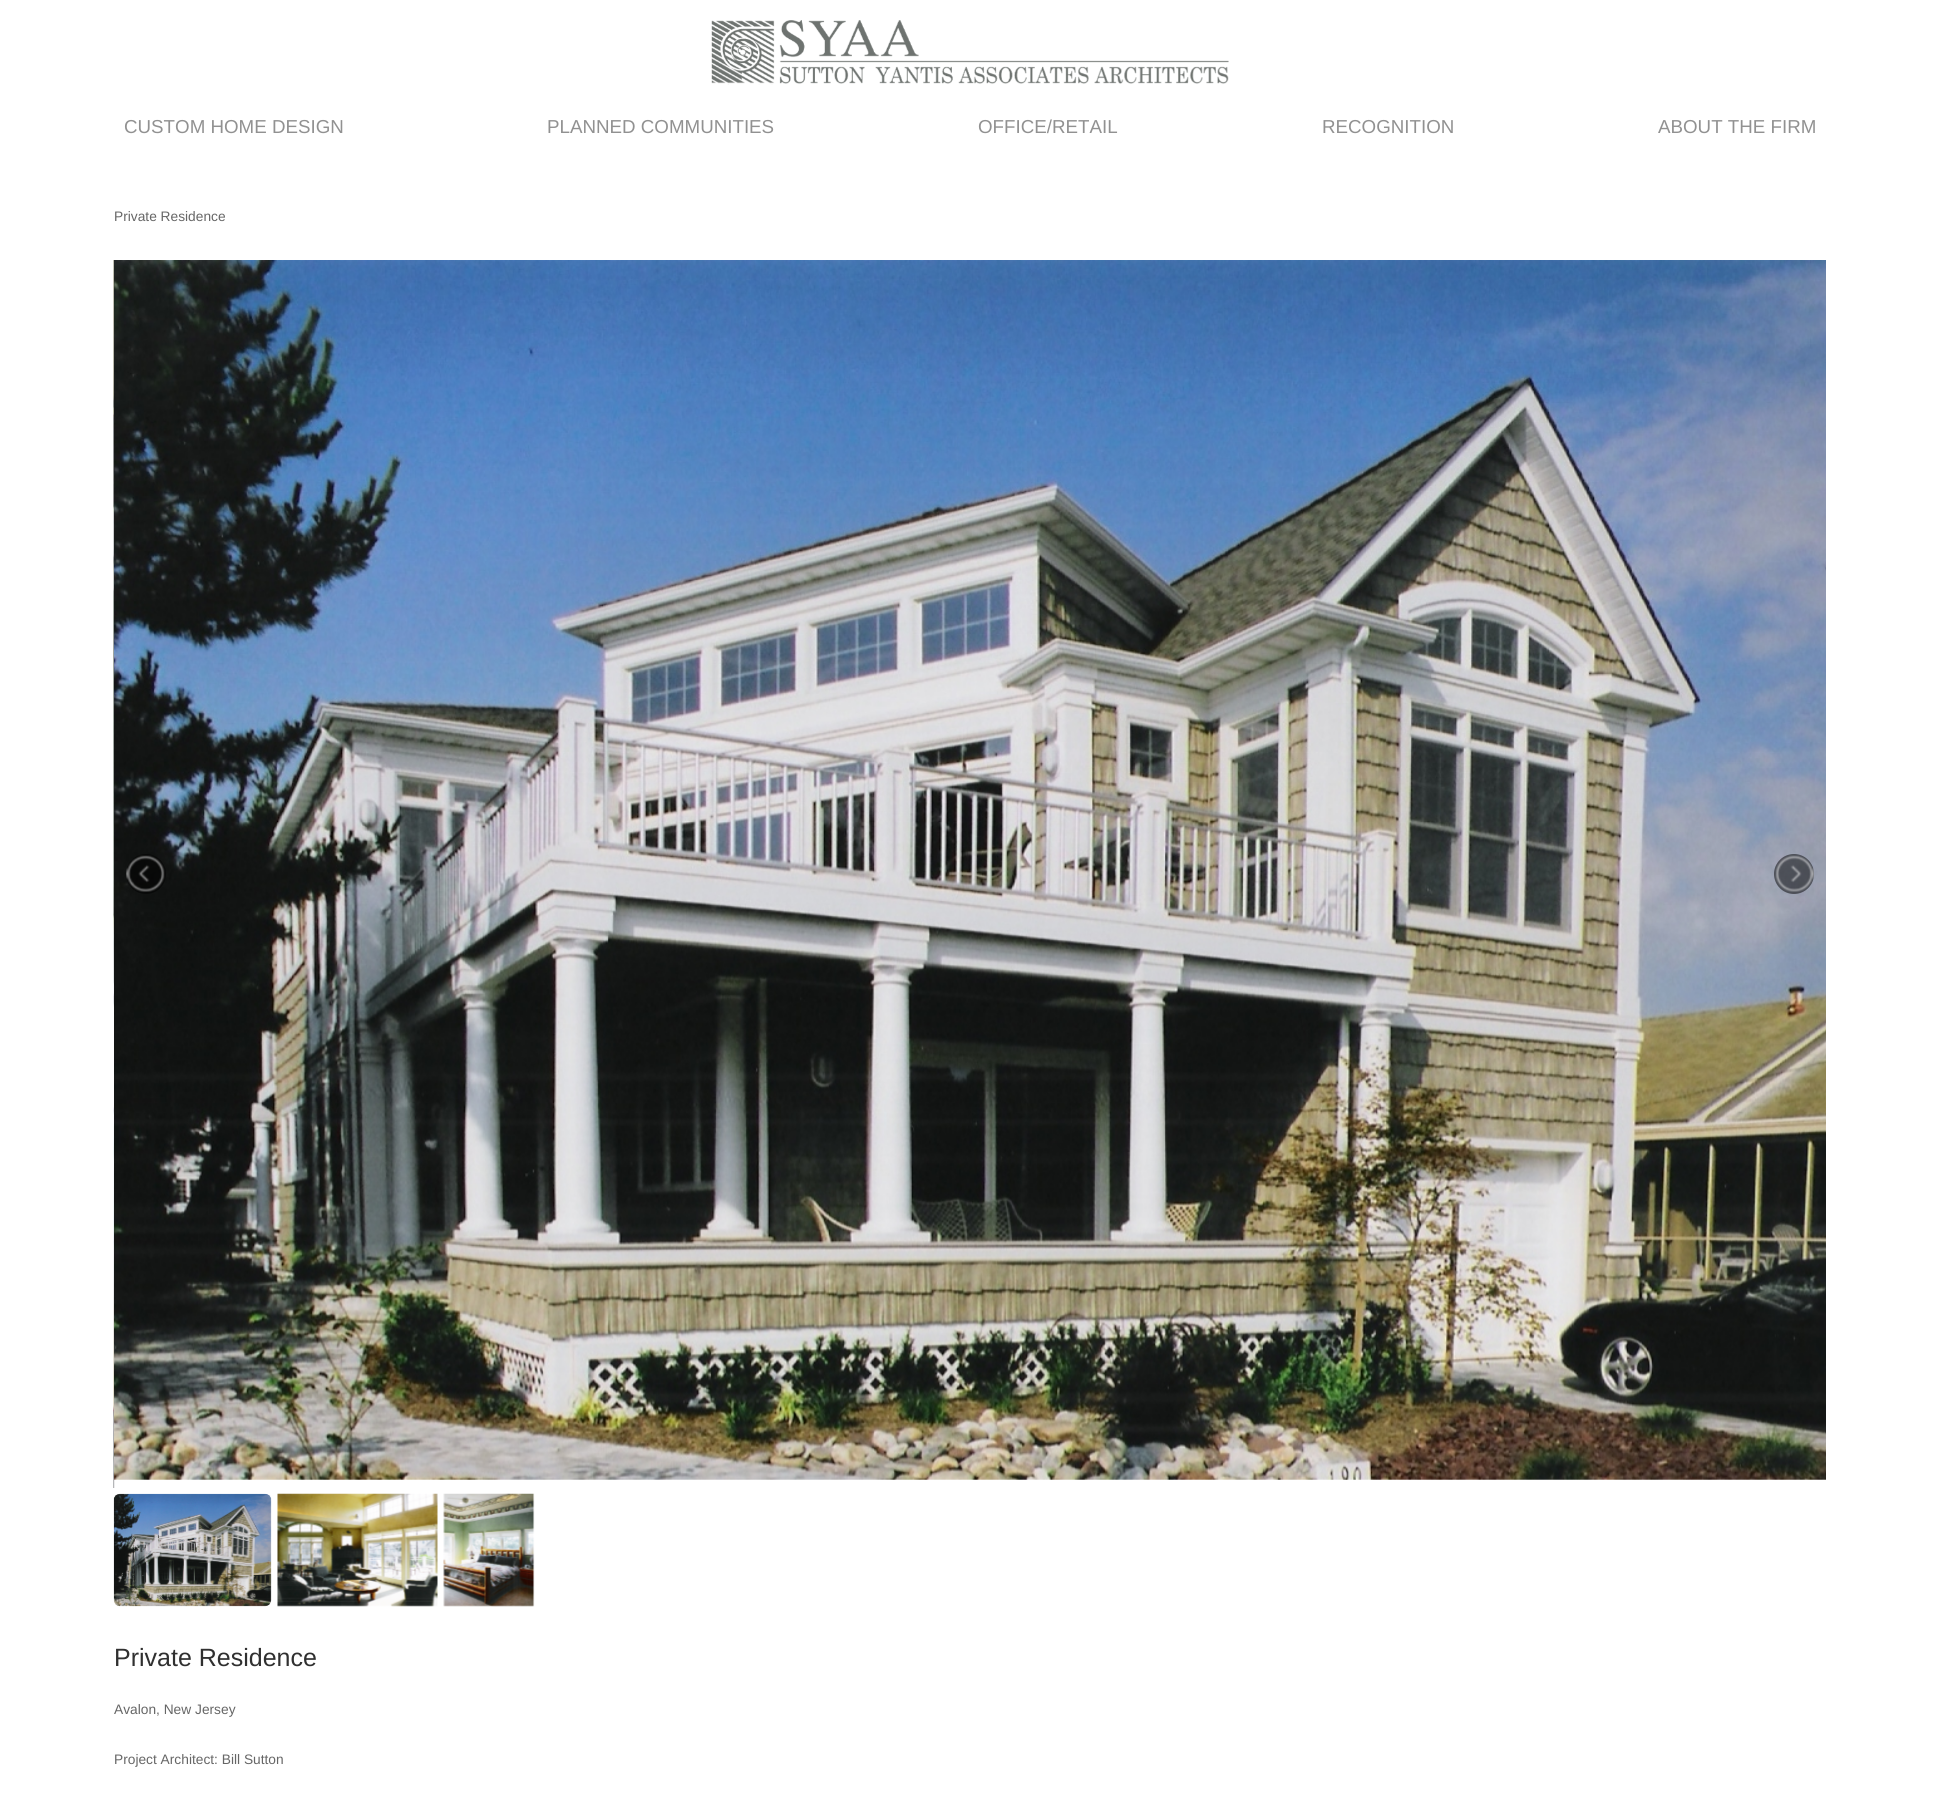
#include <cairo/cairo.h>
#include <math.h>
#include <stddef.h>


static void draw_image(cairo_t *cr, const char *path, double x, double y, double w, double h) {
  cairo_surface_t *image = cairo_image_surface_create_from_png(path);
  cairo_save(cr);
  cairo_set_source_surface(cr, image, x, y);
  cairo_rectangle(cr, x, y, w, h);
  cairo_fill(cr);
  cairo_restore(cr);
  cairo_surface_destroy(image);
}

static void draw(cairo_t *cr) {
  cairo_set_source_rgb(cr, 1, 1, 1);
  cairo_paint(cr);
  draw_image(cr, "images/1.png", 711, 20, 518, 65);
  draw_image(cr, "images/2.png", 113, 260, 2, 1228);
  draw_image(cr, "images/3.png", 114, 260, 1712, 1220);
  cairo_set_source_rgba(cr, 0, 0, 0, 0.5);
  cairo_arc(cr, 146, 874, 20, 0, 2 * M_PI);
  cairo_fill(cr);
  draw_image(cr, "images/4.png", 126, 855, 39, 37);
  cairo_arc(cr, 1794, 874, 20, 0, 2 * M_PI);
  cairo_fill(cr);
  draw_image(cr, "images/5.png", 1775, 855, 39, 37);
  draw_image(cr, "images/6.png", 113, 1493, 159, 114);
  draw_image(cr, "images/7.png", 277, 1493, 161, 114);
  draw_image(cr, "images/8.png", 443, 1493, 92, 114);
  cairo_select_font_face(cr, "Liberation Sans", CAIRO_FONT_SLANT_NORMAL, CAIRO_FONT_WEIGHT_NORMAL);
  cairo_set_font_size(cr, 18.75);
  cairo_set_source_rgb(cr, 145 / 255.0, 145 / 255.0, 145 / 255.0);
  cairo_move_to(cr, 124, 133);
  cairo_show_text(cr, "CUSTOM HOME DESIGN");
  cairo_move_to(cr, 547, 133);
  cairo_show_text(cr, "PLANNED COMMUNITIES");
  cairo_move_to(cr, 978, 133);
  cairo_show_text(cr, "OFFICE/RETAIL");
  cairo_move_to(cr, 1322, 133);
  cairo_show_text(cr, "RECOGNITION");
  cairo_move_to(cr, 1658, 133);
  cairo_show_text(cr, "ABOUT THE FIRM");
  cairo_set_font_size(cr, 13.75);
  cairo_set_source_rgb(cr, 102 / 255.0, 102 / 255.0, 102 / 255.0);
  cairo_move_to(cr, 114, 221);
  cairo_show_text(cr, "Private Residence");
  cairo_set_font_size(cr, 25);
  cairo_set_source_rgb(cr, 48 / 255.0, 48 / 255.0, 48 / 255.0);
  cairo_move_to(cr, 114, 1666);
  cairo_show_text(cr, "Private Residence");
  cairo_set_font_size(cr, 13.75);
  cairo_set_source_rgb(cr, 102 / 255.0, 102 / 255.0, 102 / 255.0);
  cairo_move_to(cr, 114, 1714);
  cairo_show_text(cr, "Avalon, New Jersey");
  cairo_move_to(cr, 114, 1764);
  cairo_show_text(cr, "Project Architect: Bill Sutton");
}

int main(void) {
  cairo_surface_t *surface = cairo_image_surface_create(CAIRO_FORMAT_RGB24, 1939, 1795);
  cairo_t *cr = cairo_create(surface);
  cairo_font_options_t *options = cairo_font_options_create();
  cairo_font_options_set_hint_metrics(options, CAIRO_HINT_METRICS_OFF);
  cairo_font_options_set_hint_style(options, CAIRO_HINT_STYLE_NONE);
  cairo_set_font_options(cr, options);
  cairo_set_miter_limit(cr, 4);
  draw(cr);
  cairo_surface_write_to_png(surface, "out.png");
  cairo_font_options_destroy(options);
  cairo_destroy(cr);
  cairo_surface_destroy(surface);
  return 0;
}
